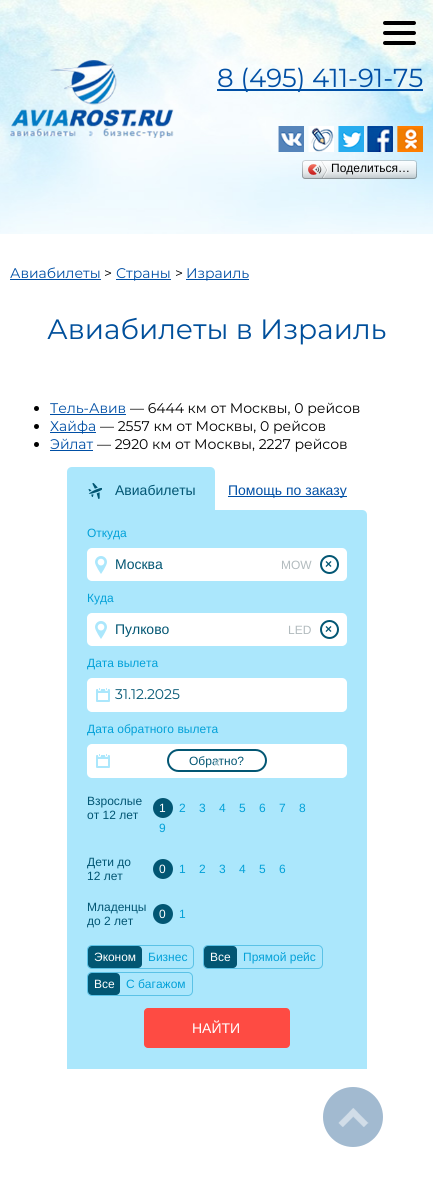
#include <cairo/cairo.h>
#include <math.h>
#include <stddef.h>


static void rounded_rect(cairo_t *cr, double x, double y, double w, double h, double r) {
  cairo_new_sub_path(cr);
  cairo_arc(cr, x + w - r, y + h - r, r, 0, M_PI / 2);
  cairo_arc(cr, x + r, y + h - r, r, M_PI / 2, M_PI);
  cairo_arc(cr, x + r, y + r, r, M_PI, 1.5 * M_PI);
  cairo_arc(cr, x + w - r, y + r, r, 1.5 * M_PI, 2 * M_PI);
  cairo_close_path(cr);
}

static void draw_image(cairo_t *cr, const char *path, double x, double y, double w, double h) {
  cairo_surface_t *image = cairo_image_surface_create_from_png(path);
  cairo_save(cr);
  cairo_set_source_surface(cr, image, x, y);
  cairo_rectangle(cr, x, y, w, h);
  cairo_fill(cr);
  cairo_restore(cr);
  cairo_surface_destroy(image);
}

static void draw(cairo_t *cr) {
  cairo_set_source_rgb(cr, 1, 1, 1);
  cairo_paint(cr);
  draw_image(cr, "images/1.png", 0, 0, 433, 234);
  cairo_set_source_rgb(cr, 0, 0, 0);
  rounded_rect(cr, 383, 31, 33, 4, 2);
  cairo_fill(cr);
  rounded_rect(cr, 383, 21, 33, 4, 2);
  cairo_fill(cr);
  rounded_rect(cr, 383, 41, 33, 4, 2);
  cairo_fill(cr);
  draw_image(cr, "images/2.png", 10, 60, 164, 78);
  cairo_set_source_rgb(cr, 0, 79 / 255.0, 165 / 255.0);
  cairo_rectangle(cr, 217, 89, 206, 2);
  cairo_fill(cr);
  draw_image(cr, "images/3.png", 278, 126, 26, 26);
  draw_image(cr, "images/4.png", 308, 126, 26, 26);
  draw_image(cr, "images/5.png", 338, 126, 26, 26);
  draw_image(cr, "images/6.png", 367, 126, 26, 26);
  draw_image(cr, "images/7.png", 397, 126, 26, 26);
  draw_image(cr, "images/8.png", 305, 160, 109, 19);
  draw_image(cr, "images/9.png", 302, 160, 3, 19);
  draw_image(cr, "images/10.png", 308, 161, 20, 17);
  draw_image(cr, "images/11.png", 414, 160, 3, 19);
  cairo_rectangle(cr, 10, 279, 91, 1);
  cairo_fill(cr);
  cairo_rectangle(cr, 116, 279, 55, 1);
  cairo_fill(cr);
  cairo_rectangle(cr, 186, 279, 63, 1);
  cairo_fill(cr);
  cairo_set_source_rgb(cr, 0, 0, 0);
  cairo_arc(cr, 36.5, 408.5, 2.5, 0, 2 * M_PI);
  cairo_fill(cr);
  cairo_set_source_rgb(cr, 0, 79 / 255.0, 165 / 255.0);
  cairo_rectangle(cr, 50, 414, 76, 1);
  cairo_fill(cr);
  cairo_set_source_rgb(cr, 0, 0, 0);
  cairo_arc(cr, 36.5, 426.5, 2.5, 0, 2 * M_PI);
  cairo_fill(cr);
  cairo_set_source_rgb(cr, 0, 79 / 255.0, 165 / 255.0);
  cairo_rectangle(cr, 50, 432, 46, 1);
  cairo_fill(cr);
  cairo_set_source_rgb(cr, 0, 0, 0);
  cairo_arc(cr, 36.5, 444.5, 2.5, 0, 2 * M_PI);
  cairo_fill(cr);
  cairo_set_source_rgb(cr, 0, 79 / 255.0, 165 / 255.0);
  cairo_rectangle(cr, 50, 450, 43, 1);
  cairo_fill(cr);
  cairo_set_source_rgb(cr, 171 / 255.0, 231 / 255.0, 252 / 255.0);
  cairo_new_path(cr);
  cairo_move_to(cr, 72, 467);
  cairo_line_to(cr, 210, 467);
  cairo_curve_to(cr, 213, 467, 215, 469, 215, 472);
  cairo_line_to(cr, 215, 510);
  cairo_line_to(cr, 67, 510);
  cairo_line_to(cr, 67, 472);
  cairo_curve_to(cr, 67, 469, 69, 467, 72, 467);
  cairo_close_path(cr);
  cairo_fill(cr);
  draw_image(cr, "images/12.png", 88, 483, 14, 16);
  cairo_set_source_rgb(cr, 0, 79 / 255.0, 165 / 255.0);
  cairo_rectangle(cr, 228, 496, 119, 1);
  cairo_fill(cr);
  cairo_set_source_rgb(cr, 171 / 255.0, 231 / 255.0, 252 / 255.0);
  cairo_new_path(cr);
  cairo_move_to(cr, 67, 510);
  cairo_line_to(cr, 362, 510);
  cairo_curve_to(cr, 365, 510, 367, 512, 367, 515);
  cairo_line_to(cr, 367, 1069);
  cairo_line_to(cr, 67, 1069);
  cairo_close_path(cr);
  cairo_fill(cr);
  cairo_set_source_rgb(cr, 1, 1, 1);
  rounded_rect(cr, 88, 549, 258, 31, 4);
  cairo_fill_preserve(cr);
  cairo_stroke(cr);
  draw_image(cr, "images/13.png", 95, 556, 12, 18);
  cairo_arc(cr, 329.5, 564.5, 8.5, 0, 2 * M_PI);
  cairo_set_source_rgb(cr, 2 / 255.0, 86 / 255.0, 115 / 255.0);
  cairo_stroke(cr);
  cairo_set_source_rgb(cr, 1, 1, 1);
  rounded_rect(cr, 88, 614, 258, 31, 4);
  cairo_fill_preserve(cr);
  cairo_stroke(cr);
  draw_image(cr, "images/13.png", 95, 621, 12, 18);
  cairo_arc(cr, 329.5, 629.5, 8.5, 0, 2 * M_PI);
  cairo_set_source_rgb(cr, 2 / 255.0, 86 / 255.0, 115 / 255.0);
  cairo_stroke(cr);
  cairo_set_source_rgb(cr, 1, 1, 1);
  rounded_rect(cr, 88, 679, 258, 32, 4);
  cairo_fill_preserve(cr);
  cairo_stroke(cr);
  draw_image(cr, "images/14.png", 96, 688, 14, 14);
  rounded_rect(cr, 88, 745, 258, 32, 4);
  cairo_fill_preserve(cr);
  cairo_stroke(cr);
  draw_image(cr, "images/14.png", 96, 754, 14, 14);
  rounded_rect(cr, 168, 750, 98, 21, 10.5);
  cairo_set_source_rgb(cr, 2 / 255.0, 86 / 255.0, 115 / 255.0);
  cairo_stroke(cr);
  cairo_arc(cr, 163, 808, 10, 0, 2 * M_PI);
  cairo_fill(cr);
  cairo_arc(cr, 163, 869, 10, 0, 2 * M_PI);
  cairo_fill(cr);
  cairo_arc(cr, 163, 914, 10, 0, 2 * M_PI);
  cairo_fill(cr);
  rounded_rect(cr, 87.5, 945.5, 106, 23, 4.5);
  cairo_set_source_rgb(cr, 91 / 255.0, 194 / 255.0, 230 / 255.0);
  cairo_set_line_width(cr, 1);
  cairo_stroke(cr);
  cairo_set_source_rgb(cr, 2 / 255.0, 86 / 255.0, 115 / 255.0);
  rounded_rect(cr, 88, 946, 54, 22, 4);
  cairo_fill(cr);
  rounded_rect(cr, 203.5, 945.5, 119, 23, 4.5);
  cairo_set_source_rgb(cr, 91 / 255.0, 194 / 255.0, 230 / 255.0);
  cairo_stroke(cr);
  cairo_set_source_rgb(cr, 2 / 255.0, 86 / 255.0, 115 / 255.0);
  rounded_rect(cr, 204, 946, 33, 22, 4);
  cairo_fill(cr);
  rounded_rect(cr, 87.5, 972.5, 105, 23, 4.5);
  cairo_set_source_rgb(cr, 91 / 255.0, 194 / 255.0, 230 / 255.0);
  cairo_stroke(cr);
  cairo_set_source_rgb(cr, 2 / 255.0, 86 / 255.0, 115 / 255.0);
  rounded_rect(cr, 88, 973, 32, 22, 4);
  cairo_fill(cr);
  cairo_set_source_rgb(cr, 254 / 255.0, 75 / 255.0, 67 / 255.0);
  rounded_rect(cr, 144, 1008, 146, 40, 4);
  cairo_fill(cr);
  cairo_set_source_rgb(cr, 162 / 255.0, 186 / 255.0, 208 / 255.0);
  cairo_arc(cr, 353, 1117, 30, 0, 2 * M_PI);
  cairo_fill(cr);
  draw_image(cr, "images/15.png", 338, 1108, 31, 19);
  cairo_select_font_face(cr, "Montserrat", CAIRO_FONT_SLANT_NORMAL, CAIRO_FONT_WEIGHT_NORMAL);
  cairo_set_font_size(cr, 26);
  cairo_set_source_rgb(cr, 0, 79 / 255.0, 165 / 255.0);
  cairo_move_to(cr, 217, 87);
  cairo_show_text(cr, "8 (495) 411-91-75");
  cairo_select_font_face(cr, "Liberation Sans", CAIRO_FONT_SLANT_NORMAL, CAIRO_FONT_WEIGHT_NORMAL);
  cairo_set_font_size(cr, 12);
  cairo_set_source_rgb(cr, 0, 0, 0);
  cairo_move_to(cr, 331, 172);
  cairo_show_text(cr, "Поделиться…");
  cairo_select_font_face(cr, "Montserrat", CAIRO_FONT_SLANT_NORMAL, CAIRO_FONT_WEIGHT_NORMAL);
  cairo_set_font_size(cr, 14);
  cairo_set_source_rgb(cr, 0, 79 / 255.0, 165 / 255.0);
  cairo_move_to(cr, 10, 278);
  cairo_show_text(cr, "Авиабилеты");
  cairo_set_source_rgb(cr, 0, 0, 0);
  cairo_move_to(cr, 104, 278);
  cairo_show_text(cr, ">");
  cairo_set_source_rgb(cr, 0, 79 / 255.0, 165 / 255.0);
  cairo_move_to(cr, 116, 278);
  cairo_show_text(cr, "Страны");
  cairo_set_source_rgb(cr, 0, 0, 0);
  cairo_move_to(cr, 175, 278);
  cairo_show_text(cr, ">");
  cairo_set_source_rgb(cr, 0, 79 / 255.0, 165 / 255.0);
  cairo_move_to(cr, 186, 278);
  cairo_show_text(cr, "Израиль");
  cairo_set_font_size(cr, 28);
  cairo_set_source_rgb(cr, 0, 79 / 255.0, 155 / 255.0);
  cairo_move_to(cr, 47, 339);
  cairo_show_text(cr, "Авиабилеты в Израиль");
  cairo_set_font_size(cr, 14);
  cairo_set_source_rgb(cr, 0, 79 / 255.0, 165 / 255.0);
  cairo_move_to(cr, 50, 413);
  cairo_show_text(cr, "Тель-Авив");
  cairo_set_source_rgb(cr, 0, 0, 0);
  cairo_move_to(cr, 130, 413);
  cairo_show_text(cr, "— 6444 км от Москвы, 0 рейсов");
  cairo_set_source_rgb(cr, 0, 79 / 255.0, 165 / 255.0);
  cairo_move_to(cr, 50, 431);
  cairo_show_text(cr, "Хайфа");
  cairo_set_source_rgb(cr, 0, 0, 0);
  cairo_move_to(cr, 100, 431);
  cairo_show_text(cr, "— 2557 км от Москвы, 0 рейсов");
  cairo_set_source_rgb(cr, 0, 79 / 255.0, 165 / 255.0);
  cairo_move_to(cr, 50, 449);
  cairo_show_text(cr, "Эйлат");
  cairo_set_source_rgb(cr, 0, 0, 0);
  cairo_move_to(cr, 97, 449);
  cairo_show_text(cr, "— 2920 км от Москвы, 2227 рейсов");
  cairo_select_font_face(cr, "Liberation Sans", CAIRO_FONT_SLANT_NORMAL, CAIRO_FONT_WEIGHT_NORMAL);
  cairo_set_source_rgb(cr, 2 / 255.0, 86 / 255.0, 115 / 255.0);
  cairo_move_to(cr, 115, 495);
  cairo_show_text(cr, "Авиабилеты");
  cairo_set_source_rgb(cr, 0, 79 / 255.0, 165 / 255.0);
  cairo_move_to(cr, 228, 495);
  cairo_show_text(cr, "Помощь по заказу");
  cairo_set_font_size(cr, 12);
  cairo_set_source_rgb(cr, 3 / 255.0, 161 / 255.0, 216 / 255.0);
  cairo_move_to(cr, 87, 537);
  cairo_show_text(cr, "Откуда");
  cairo_set_font_size(cr, 14);
  cairo_set_source_rgb(cr, 2 / 255.0, 86 / 255.0, 115 / 255.0);
  cairo_move_to(cr, 115, 569);
  cairo_show_text(cr, "Москва");
  cairo_set_font_size(cr, 12);
  cairo_set_source_rgb(cr, 178 / 255.0, 187 / 255.0, 190 / 255.0);
  cairo_move_to(cr, 281, 569);
  cairo_show_text(cr, "MOW");
  cairo_select_font_face(cr, "Liberation Sans", CAIRO_FONT_SLANT_NORMAL, CAIRO_FONT_WEIGHT_BOLD);
  cairo_set_source_rgb(cr, 2 / 255.0, 86 / 255.0, 115 / 255.0);
  cairo_move_to(cr, 325, 568);
  cairo_show_text(cr, "×");
  cairo_select_font_face(cr, "Liberation Sans", CAIRO_FONT_SLANT_NORMAL, CAIRO_FONT_WEIGHT_NORMAL);
  cairo_set_source_rgb(cr, 3 / 255.0, 161 / 255.0, 216 / 255.0);
  cairo_move_to(cr, 87, 602);
  cairo_show_text(cr, "Куда");
  cairo_set_font_size(cr, 14);
  cairo_set_source_rgb(cr, 2 / 255.0, 86 / 255.0, 115 / 255.0);
  cairo_move_to(cr, 115, 634);
  cairo_show_text(cr, "Пулково");
  cairo_set_font_size(cr, 12);
  cairo_set_source_rgb(cr, 178 / 255.0, 187 / 255.0, 190 / 255.0);
  cairo_move_to(cr, 288, 634);
  cairo_show_text(cr, "LED");
  cairo_select_font_face(cr, "Liberation Sans", CAIRO_FONT_SLANT_NORMAL, CAIRO_FONT_WEIGHT_BOLD);
  cairo_set_source_rgb(cr, 2 / 255.0, 86 / 255.0, 115 / 255.0);
  cairo_move_to(cr, 325, 633);
  cairo_show_text(cr, "×");
  cairo_select_font_face(cr, "Liberation Sans", CAIRO_FONT_SLANT_NORMAL, CAIRO_FONT_WEIGHT_NORMAL);
  cairo_set_source_rgb(cr, 3 / 255.0, 161 / 255.0, 216 / 255.0);
  cairo_move_to(cr, 87, 667);
  cairo_show_text(cr, "Дата вылета");
  cairo_select_font_face(cr, "Montserrat", CAIRO_FONT_SLANT_NORMAL, CAIRO_FONT_WEIGHT_NORMAL);
  cairo_set_font_size(cr, 14);
  cairo_set_source_rgb(cr, 2 / 255.0, 86 / 255.0, 115 / 255.0);
  cairo_move_to(cr, 115, 699);
  cairo_show_text(cr, "31.12.2025");
  cairo_save(cr);
  cairo_rectangle(cr, 87, 722, 260, 66);
  cairo_clip(cr);
  cairo_select_font_face(cr, "Liberation Sans", CAIRO_FONT_SLANT_NORMAL, CAIRO_FONT_WEIGHT_NORMAL);
  cairo_set_font_size(cr, 12);
  cairo_set_source_rgb(cr, 3 / 255.0, 161 / 255.0, 216 / 255.0);
  cairo_move_to(cr, 87, 733);
  cairo_show_text(cr, "Дата обратного вылета");
  cairo_restore(cr);
  cairo_select_font_face(cr, "Liberation Sans", CAIRO_FONT_SLANT_NORMAL, CAIRO_FONT_WEIGHT_NORMAL);
  cairo_set_font_size(cr, 12);
  cairo_move_to(cr, 189, 765);
  cairo_show_text(cr, "Обратно?");
  cairo_select_font_face(cr, "Liberation Sans", CAIRO_FONT_SLANT_NORMAL, CAIRO_FONT_WEIGHT_BOLD);
  cairo_set_source_rgb(cr, 177 / 255.0, 203 / 255.0, 212 / 255.0);
  cairo_save(cr);
  cairo_translate(cr, 220, 759);
  cairo_rotate(cr, 180 * M_PI / 180);
  cairo_move_to(cr, 0, 0);
  cairo_show_text(cr, "×");
  cairo_restore(cr);
  cairo_select_font_face(cr, "Liberation Sans", CAIRO_FONT_SLANT_NORMAL, CAIRO_FONT_WEIGHT_NORMAL);
  cairo_set_source_rgb(cr, 2 / 255.0, 86 / 255.0, 115 / 255.0);
  cairo_move_to(cr, 87, 805);
  cairo_show_text(cr, "Взрослые");
  cairo_move_to(cr, 87, 819);
  cairo_show_text(cr, "от 12 лет");
  cairo_set_source_rgb(cr, 1, 1, 1);
  cairo_move_to(cr, 159, 812);
  cairo_show_text(cr, "1");
  cairo_set_source_rgb(cr, 3 / 255.0, 161 / 255.0, 216 / 255.0);
  cairo_move_to(cr, 179, 812);
  cairo_show_text(cr, "2");
  cairo_move_to(cr, 199, 812);
  cairo_show_text(cr, "3");
  cairo_move_to(cr, 219, 812);
  cairo_show_text(cr, "4");
  cairo_move_to(cr, 239, 812);
  cairo_show_text(cr, "5");
  cairo_move_to(cr, 259, 812);
  cairo_show_text(cr, "6");
  cairo_move_to(cr, 279, 812);
  cairo_show_text(cr, "7");
  cairo_move_to(cr, 299, 812);
  cairo_show_text(cr, "8");
  cairo_move_to(cr, 159, 832);
  cairo_show_text(cr, "9");
  cairo_set_source_rgb(cr, 2 / 255.0, 86 / 255.0, 115 / 255.0);
  cairo_move_to(cr, 87, 866);
  cairo_show_text(cr, "Дети до");
  cairo_move_to(cr, 87, 880);
  cairo_show_text(cr, "12 лет");
  cairo_set_source_rgb(cr, 1, 1, 1);
  cairo_move_to(cr, 159, 873);
  cairo_show_text(cr, "0");
  cairo_set_source_rgb(cr, 3 / 255.0, 161 / 255.0, 216 / 255.0);
  cairo_move_to(cr, 179, 873);
  cairo_show_text(cr, "1");
  cairo_move_to(cr, 199, 873);
  cairo_show_text(cr, "2");
  cairo_move_to(cr, 219, 873);
  cairo_show_text(cr, "3");
  cairo_move_to(cr, 239, 873);
  cairo_show_text(cr, "4");
  cairo_move_to(cr, 259, 873);
  cairo_show_text(cr, "5");
  cairo_move_to(cr, 279, 873);
  cairo_show_text(cr, "6");
  cairo_set_source_rgb(cr, 2 / 255.0, 86 / 255.0, 115 / 255.0);
  cairo_move_to(cr, 87, 911);
  cairo_show_text(cr, "Младенцы");
  cairo_move_to(cr, 87, 925);
  cairo_show_text(cr, "до 2 лет");
  cairo_set_source_rgb(cr, 1, 1, 1);
  cairo_move_to(cr, 159, 918);
  cairo_show_text(cr, "0");
  cairo_set_source_rgb(cr, 3 / 255.0, 161 / 255.0, 216 / 255.0);
  cairo_move_to(cr, 179, 918);
  cairo_show_text(cr, "1");
  cairo_set_source_rgb(cr, 1, 1, 1);
  cairo_move_to(cr, 94, 961);
  cairo_show_text(cr, "Эконом");
  cairo_set_source_rgb(cr, 3 / 255.0, 161 / 255.0, 216 / 255.0);
  cairo_move_to(cr, 148, 961);
  cairo_show_text(cr, "Бизнес");
  cairo_set_source_rgb(cr, 1, 1, 1);
  cairo_move_to(cr, 210, 961);
  cairo_show_text(cr, "Все");
  cairo_set_source_rgb(cr, 3 / 255.0, 161 / 255.0, 216 / 255.0);
  cairo_move_to(cr, 243, 961);
  cairo_show_text(cr, "Прямой рейс");
  cairo_set_source_rgb(cr, 1, 1, 1);
  cairo_move_to(cr, 94, 988);
  cairo_show_text(cr, "Все");
  cairo_set_source_rgb(cr, 3 / 255.0, 161 / 255.0, 216 / 255.0);
  cairo_move_to(cr, 126, 988);
  cairo_show_text(cr, "C багажом");
  cairo_set_font_size(cr, 14);
  cairo_set_source_rgb(cr, 1, 1, 1);
  cairo_move_to(cr, 192, 1033);
  cairo_show_text(cr, "НАЙТИ");
}

int main(void) {
  cairo_surface_t *surface = cairo_image_surface_create(CAIRO_FORMAT_RGB24, 433, 1197);
  cairo_t *cr = cairo_create(surface);
  cairo_font_options_t *options = cairo_font_options_create();
  cairo_font_options_set_hint_metrics(options, CAIRO_HINT_METRICS_OFF);
  cairo_font_options_set_hint_style(options, CAIRO_HINT_STYLE_NONE);
  cairo_set_font_options(cr, options);
  cairo_set_miter_limit(cr, 4);
  draw(cr);
  cairo_surface_write_to_png(surface, "out.png");
  cairo_font_options_destroy(options);
  cairo_destroy(cr);
  cairo_surface_destroy(surface);
  return 0;
}
